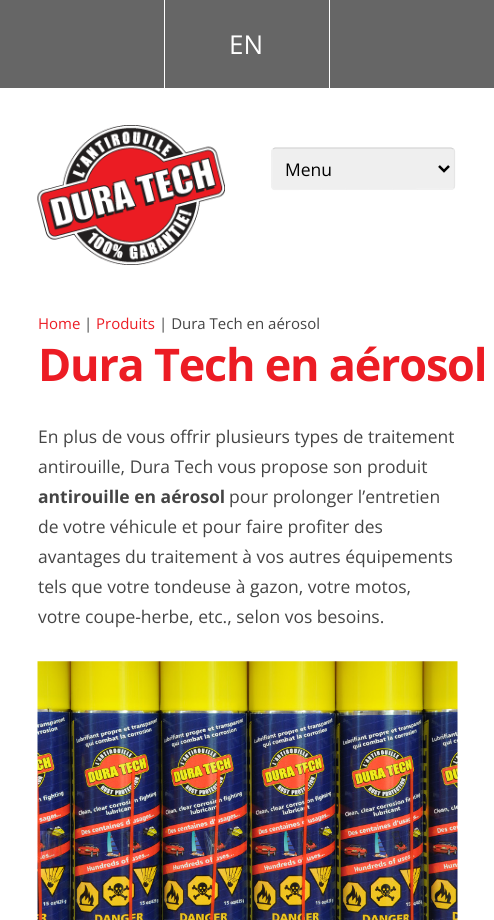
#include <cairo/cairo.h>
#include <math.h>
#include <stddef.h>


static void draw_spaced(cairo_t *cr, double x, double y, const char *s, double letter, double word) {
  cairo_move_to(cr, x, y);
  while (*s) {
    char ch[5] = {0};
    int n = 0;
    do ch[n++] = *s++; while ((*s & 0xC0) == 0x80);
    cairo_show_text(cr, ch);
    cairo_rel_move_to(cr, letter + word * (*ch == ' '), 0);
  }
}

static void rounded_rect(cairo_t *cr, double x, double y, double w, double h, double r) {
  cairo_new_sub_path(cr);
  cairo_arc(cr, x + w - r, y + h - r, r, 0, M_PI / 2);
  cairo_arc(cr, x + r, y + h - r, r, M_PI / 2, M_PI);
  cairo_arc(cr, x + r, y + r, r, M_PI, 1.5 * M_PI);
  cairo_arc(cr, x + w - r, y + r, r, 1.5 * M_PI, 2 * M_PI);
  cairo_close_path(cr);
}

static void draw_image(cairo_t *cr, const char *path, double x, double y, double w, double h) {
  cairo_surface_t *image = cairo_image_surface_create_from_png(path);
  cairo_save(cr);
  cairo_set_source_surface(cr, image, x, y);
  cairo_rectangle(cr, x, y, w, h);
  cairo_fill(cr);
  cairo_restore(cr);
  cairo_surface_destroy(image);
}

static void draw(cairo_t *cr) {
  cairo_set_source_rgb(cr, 1, 1, 1);
  cairo_paint(cr);
  cairo_set_source_rgb(cr, 102 / 255.0, 102 / 255.0, 102 / 255.0);
  cairo_rectangle(cr, 0, 0, 164, 88);
  cairo_fill(cr);
  cairo_rectangle(cr, 165, 0, 164, 88);
  cairo_fill(cr);
  cairo_rectangle(cr, 330, 0, 164, 88);
  cairo_fill(cr);
  draw_image(cr, "images/1.png", 37, 125, 188, 140);
  cairo_set_source_rgb(cr, 239 / 255.0, 239 / 255.0, 239 / 255.0);
  rounded_rect(cr, 271, 148, 184, 42, 4);
  cairo_fill(cr);
  cairo_new_path(cr);
  cairo_move_to(cr, 273, 149);
  cairo_line_to(cr, 275, 148);
  cairo_line_to(cr, 451, 148);
  cairo_line_to(cr, 453.5, 149);
  cairo_set_source_rgb(cr, 212 / 255.0, 212 / 255.0, 212 / 255.0);
  cairo_set_line_width(cr, 1.2);
  cairo_stroke(cr);
  cairo_new_path(cr);
  cairo_move_to(cr, 453.5, 149);
  cairo_curve_to(cr, 454, 149.5, 454.5, 150.5, 454.5, 151);
  cairo_line_to(cr, 454.5, 186);
  cairo_curve_to(cr, 454.5, 187, 454, 188, 453.5, 188.5);
  cairo_set_source_rgb(cr, 230 / 255.0, 230 / 255.0, 230 / 255.0);
  cairo_stroke(cr);
  cairo_new_path(cr);
  cairo_move_to(cr, 453.5, 188.5);
  cairo_line_to(cr, 452, 189);
  cairo_line_to(cr, 275, 189.5);
  cairo_curve_to(cr, 270.5, 189.5, 272, 182.5, 272, 180.5);
  cairo_line_to(cr, 272, 157);
  cairo_curve_to(cr, 272, 155.5, 271, 151, 273, 149);
  cairo_set_source_rgb(cr, 241 / 255.0, 241 / 255.0, 241 / 255.0);
  cairo_stroke(cr);
  cairo_new_path(cr);
  cairo_move_to(cr, 439, 166);
  cairo_line_to(cr, 444, 171);
  cairo_line_to(cr, 449, 166);
  cairo_set_source_rgb(cr, 0, 0, 0);
  cairo_set_line_width(cr, 2.5);
  cairo_stroke(cr);
  draw_image(cr, "images/2.png", 37, 661, 421, 259);
  cairo_select_font_face(cr, "Open Sans", CAIRO_FONT_SLANT_NORMAL, CAIRO_FONT_WEIGHT_NORMAL);
  cairo_set_font_size(cr, 26);
  cairo_set_source_rgb(cr, 1, 1, 1);
  cairo_move_to(cr, 229, 54);
  cairo_show_text(cr, "EN");
  cairo_set_font_size(cr, 17.5);
  cairo_set_source_rgb(cr, 0, 0, 0);
  cairo_move_to(cr, 285, 176);
  cairo_show_text(cr, "Menu");
  cairo_set_font_size(cr, 15);
  cairo_set_source_rgb(cr, 236 / 255.0, 28 / 255.0, 36 / 255.0);
  cairo_move_to(cr, 38, 329);
  cairo_show_text(cr, "Home");
  cairo_set_source_rgb(cr, 68 / 255.0, 68 / 255.0, 68 / 255.0);
  cairo_move_to(cr, 84, 329);
  cairo_show_text(cr, "|");
  cairo_set_source_rgb(cr, 236 / 255.0, 28 / 255.0, 36 / 255.0);
  cairo_move_to(cr, 96, 329);
  cairo_show_text(cr, "Produits");
  cairo_set_source_rgb(cr, 68 / 255.0, 68 / 255.0, 68 / 255.0);
  cairo_move_to(cr, 159, 329);
  cairo_show_text(cr, "| Dura Tech en aérosol");
  cairo_select_font_face(cr, "Open Sans", CAIRO_FONT_SLANT_NORMAL, CAIRO_FONT_WEIGHT_BOLD);
  cairo_set_font_size(cr, 45);
  cairo_set_source_rgb(cr, 236 / 255.0, 28 / 255.0, 36 / 255.0);
  draw_spaced(cr, 38, 381, "Dura Tech en aérosol", -1.25, 0);
  cairo_select_font_face(cr, "Open Sans", CAIRO_FONT_SLANT_NORMAL, CAIRO_FONT_WEIGHT_NORMAL);
  cairo_set_font_size(cr, 17.5);
  cairo_set_source_rgb(cr, 68 / 255.0, 68 / 255.0, 68 / 255.0);
  cairo_move_to(cr, 38, 443);
  cairo_show_text(cr, "En plus de vous offrir plusieurs types de traitement");
  cairo_move_to(cr, 38, 473);
  cairo_show_text(cr, "antirouille, Dura Tech vous propose son produit");
  cairo_select_font_face(cr, "Open Sans", CAIRO_FONT_SLANT_NORMAL, CAIRO_FONT_WEIGHT_BOLD);
  cairo_move_to(cr, 38, 503);
  cairo_show_text(cr, "antirouille en aérosol");
  cairo_select_font_face(cr, "Open Sans", CAIRO_FONT_SLANT_NORMAL, CAIRO_FONT_WEIGHT_NORMAL);
  cairo_move_to(cr, 229, 503);
  cairo_show_text(cr, "pour prolonger l’entretien");
  cairo_move_to(cr, 38, 533);
  cairo_show_text(cr, "de votre véhicule et pour faire profiter des");
  cairo_move_to(cr, 38, 563);
  cairo_show_text(cr, "avantages du traitement à vos autres équipements");
  cairo_move_to(cr, 38, 593);
  cairo_show_text(cr, "tels que votre tondeuse à gazon, votre motos,");
  cairo_move_to(cr, 38, 623);
  cairo_show_text(cr, "votre coupe-herbe, etc., selon vos besoins.");
}

int main(void) {
  cairo_surface_t *surface = cairo_image_surface_create(CAIRO_FORMAT_RGB24, 494, 920);
  cairo_t *cr = cairo_create(surface);
  cairo_font_options_t *options = cairo_font_options_create();
  cairo_font_options_set_hint_metrics(options, CAIRO_HINT_METRICS_OFF);
  cairo_font_options_set_hint_style(options, CAIRO_HINT_STYLE_NONE);
  cairo_set_font_options(cr, options);
  cairo_set_miter_limit(cr, 4);
  draw(cr);
  cairo_surface_write_to_png(surface, "out.png");
  cairo_font_options_destroy(options);
  cairo_destroy(cr);
  cairo_surface_destroy(surface);
  return 0;
}
